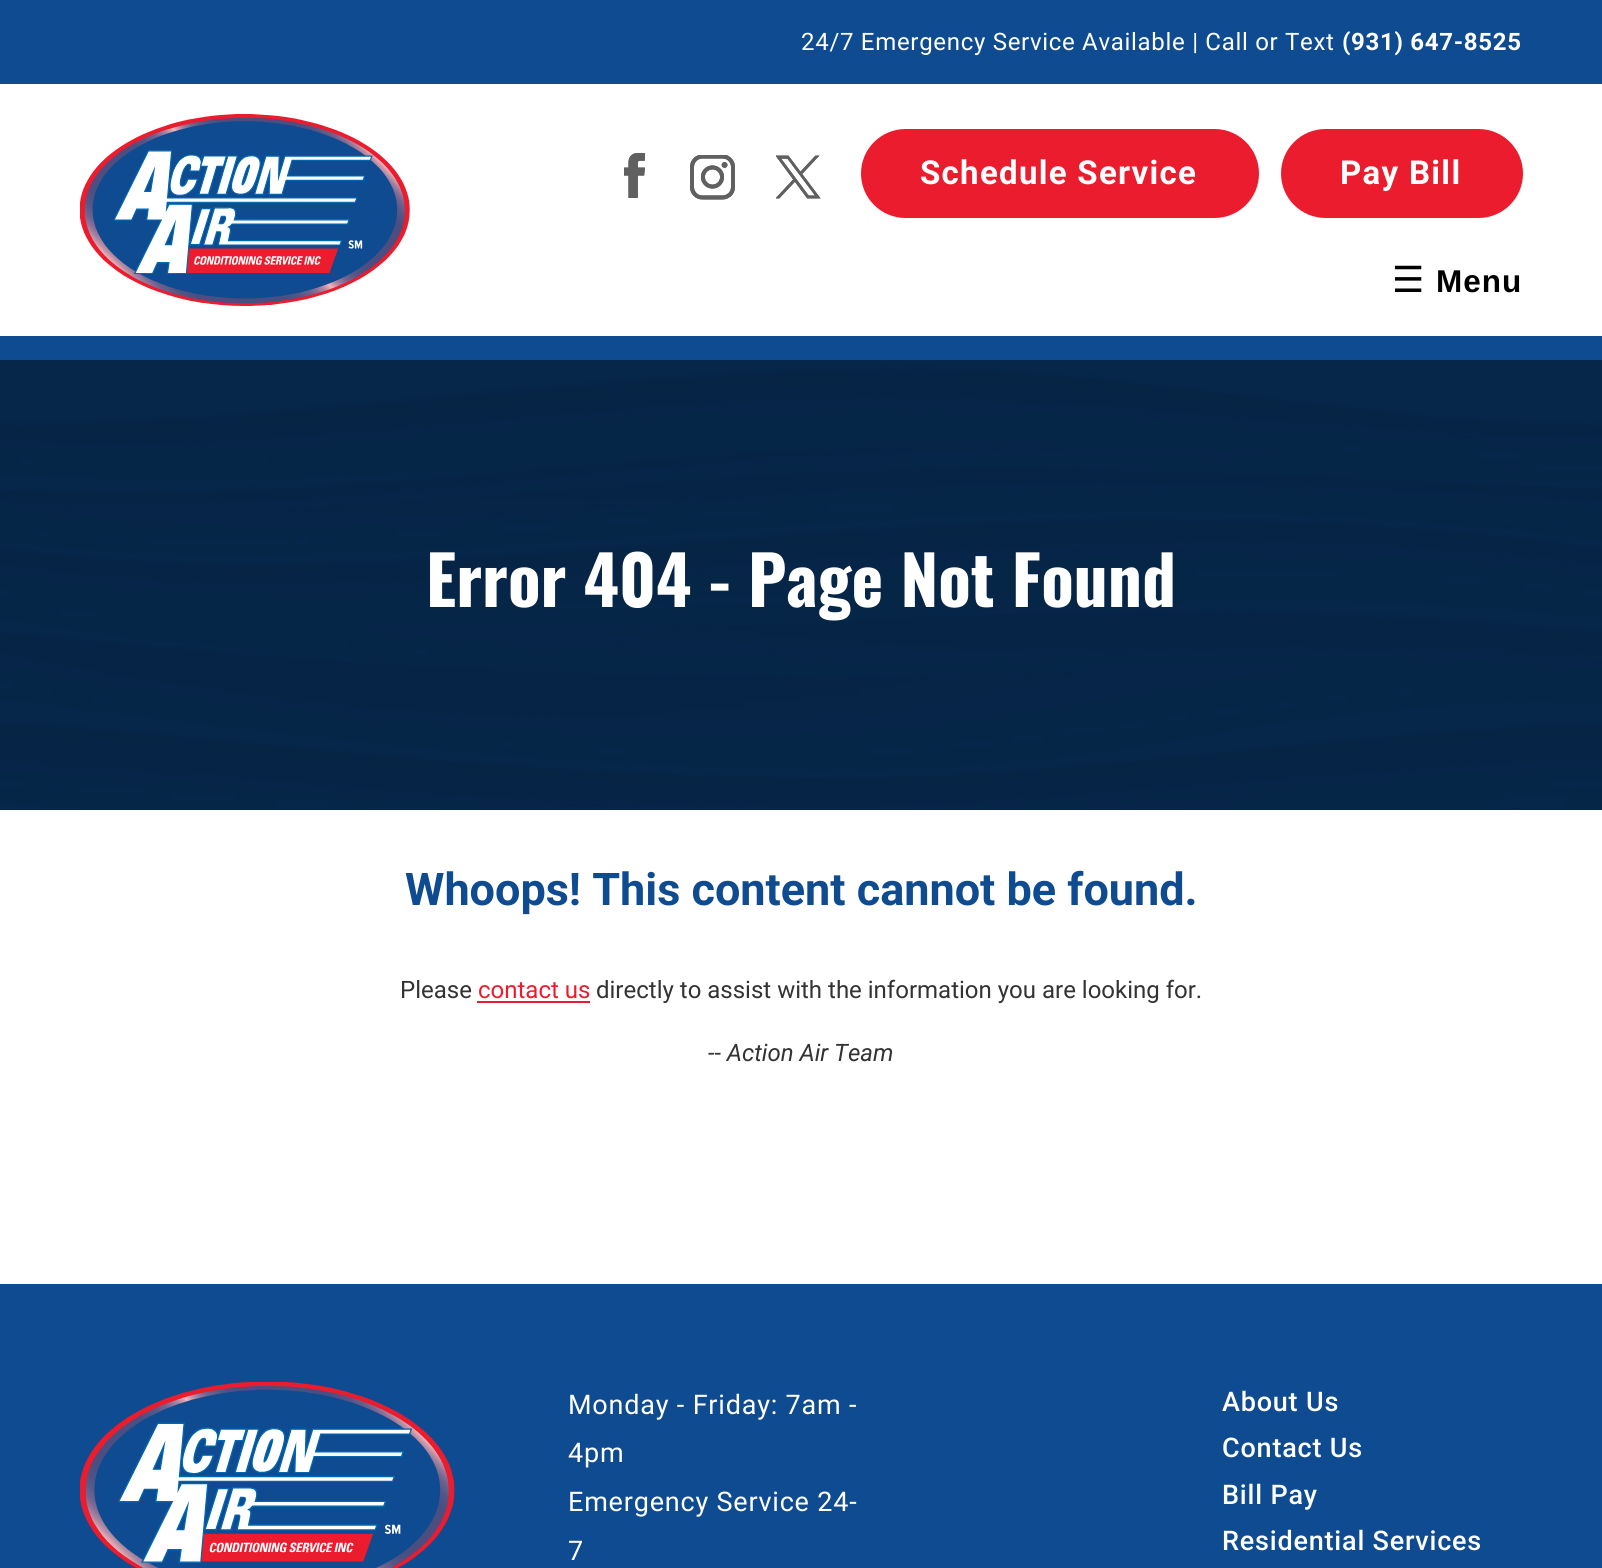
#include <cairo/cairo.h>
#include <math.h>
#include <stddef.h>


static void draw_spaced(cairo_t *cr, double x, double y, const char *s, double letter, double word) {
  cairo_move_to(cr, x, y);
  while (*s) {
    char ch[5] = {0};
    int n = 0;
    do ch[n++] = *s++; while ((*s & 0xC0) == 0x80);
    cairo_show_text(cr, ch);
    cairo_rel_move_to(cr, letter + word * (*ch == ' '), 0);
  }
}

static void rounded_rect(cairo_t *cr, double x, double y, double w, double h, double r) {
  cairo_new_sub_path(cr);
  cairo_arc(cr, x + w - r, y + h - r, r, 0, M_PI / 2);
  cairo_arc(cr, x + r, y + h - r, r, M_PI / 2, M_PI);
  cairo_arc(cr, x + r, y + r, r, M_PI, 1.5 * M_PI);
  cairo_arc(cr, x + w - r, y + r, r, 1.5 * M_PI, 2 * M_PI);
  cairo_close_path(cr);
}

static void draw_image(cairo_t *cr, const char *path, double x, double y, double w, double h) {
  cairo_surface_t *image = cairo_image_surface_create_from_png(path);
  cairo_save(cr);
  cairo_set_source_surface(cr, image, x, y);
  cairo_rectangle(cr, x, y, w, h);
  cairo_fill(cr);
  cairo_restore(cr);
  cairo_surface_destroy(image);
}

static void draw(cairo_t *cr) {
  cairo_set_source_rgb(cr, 1, 1, 1);
  cairo_paint(cr);
  cairo_set_source_rgb(cr, 15 / 255.0, 75 / 255.0, 145 / 255.0);
  cairo_rectangle(cr, 0, 336, 1602, 24);
  cairo_fill(cr);
  cairo_rectangle(cr, 0, 0, 1602, 84);
  cairo_fill(cr);
  draw_image(cr, "images/1.png", 80, 114, 330, 192);
  draw_image(cr, "images/2.png", 624, 153, 21, 45);
  draw_image(cr, "images/3.png", 624, 153, 21, 45);
  draw_image(cr, "images/4.png", 690, 155, 45, 45);
  draw_image(cr, "images/5.png", 690, 155, 45, 45);
  draw_image(cr, "images/6.png", 776, 155, 45, 44);
  draw_image(cr, "images/7.png", 776, 155, 45, 44);
  cairo_set_source_rgb(cr, 235 / 255.0, 28 / 255.0, 45 / 255.0);
  rounded_rect(cr, 861, 129, 398, 89, 44.5);
  cairo_fill(cr);
  rounded_rect(cr, 1281, 129, 242, 89, 44.5);
  cairo_fill(cr);
  draw_image(cr, "images/8.png", 0, 360, 1602, 450);
  cairo_rectangle(cr, 477, 1001, 113, 2);
  cairo_fill(cr);
  cairo_set_source_rgb(cr, 15 / 255.0, 75 / 255.0, 145 / 255.0);
  cairo_rectangle(cr, 0, 1284, 1602, 284);
  cairo_fill(cr);
  draw_image(cr, "images/9.png", 80, 1382, 375, 186);
  cairo_select_font_face(cr, "Roboto", CAIRO_FONT_SLANT_NORMAL, CAIRO_FONT_WEIGHT_NORMAL);
  cairo_set_font_size(cr, 24);
  cairo_set_source_rgb(cr, 1, 1, 1);
  draw_spaced(cr, 801, 50, "24/7 Emergency Service Available | Call or Text", 0.7, 0);
  cairo_select_font_face(cr, "Roboto", CAIRO_FONT_SLANT_NORMAL, CAIRO_FONT_WEIGHT_BOLD);
  draw_spaced(cr, 1342, 50, "(931) 647-8525", 0.7, 0);
  cairo_set_font_size(cr, 33);
  draw_spaced(cr, 920, 184, "Schedule Service", 1.3, 0);
  draw_spaced(cr, 1340, 184, "Pay Bill", 1.3, 0);
  cairo_select_font_face(cr, "DejaVu Sans", CAIRO_FONT_SLANT_NORMAL, CAIRO_FONT_WEIGHT_NORMAL);
  cairo_set_font_size(cr, 36);
  cairo_set_source_rgb(cr, 0, 0, 0);
  draw_spaced(cr, 1392, 292, "☰", 1, 0);
  cairo_select_font_face(cr, "Liberation Sans", CAIRO_FONT_SLANT_NORMAL, CAIRO_FONT_WEIGHT_BOLD);
  cairo_set_font_size(cr, 31.5);
  draw_spaced(cr, 1436, 292, "Menu", 1, 0);
  cairo_select_font_face(cr, "Oswald", CAIRO_FONT_SLANT_NORMAL, CAIRO_FONT_WEIGHT_BOLD);
  cairo_set_font_size(cr, 67.5);
  cairo_set_source_rgb(cr, 1, 1, 1);
  cairo_move_to(cr, 426, 607);
  cairo_show_text(cr, "Error 404 - Page Not Found");
  cairo_select_font_face(cr, "Roboto", CAIRO_FONT_SLANT_NORMAL, CAIRO_FONT_WEIGHT_BOLD);
  cairo_set_font_size(cr, 45);
  cairo_set_source_rgb(cr, 15 / 255.0, 75 / 255.0, 145 / 255.0);
  cairo_move_to(cr, 405, 905);
  cairo_show_text(cr, "Whoops! This content cannot be found.");
  cairo_select_font_face(cr, "Roboto", CAIRO_FONT_SLANT_NORMAL, CAIRO_FONT_WEIGHT_NORMAL);
  cairo_set_font_size(cr, 24);
  cairo_set_source_rgb(cr, 51 / 255.0, 51 / 255.0, 51 / 255.0);
  cairo_move_to(cr, 400, 998);
  cairo_show_text(cr, "Please");
  cairo_set_source_rgb(cr, 235 / 255.0, 28 / 255.0, 45 / 255.0);
  cairo_move_to(cr, 478, 998);
  cairo_show_text(cr, "contact us");
  cairo_set_source_rgb(cr, 51 / 255.0, 51 / 255.0, 51 / 255.0);
  cairo_move_to(cr, 596, 998);
  cairo_show_text(cr, "directly to assist with the information you are looking for.");
  cairo_select_font_face(cr, "Roboto", CAIRO_FONT_SLANT_ITALIC, CAIRO_FONT_WEIGHT_NORMAL);
  cairo_move_to(cr, 708, 1061);
  cairo_show_text(cr, "-- Action Air Team");
  cairo_select_font_face(cr, "Roboto", CAIRO_FONT_SLANT_NORMAL, CAIRO_FONT_WEIGHT_NORMAL);
  cairo_set_font_size(cr, 27);
  cairo_set_source_rgb(cr, 1, 1, 1);
  draw_spaced(cr, 568, 1414, "Monday - Friday: 7am -", 0.8, 0);
  draw_spaced(cr, 568, 1462, "4pm", 0.8, 0);
  draw_spaced(cr, 568, 1511, "Emergency Service 24-", 0.8, 0);
  draw_spaced(cr, 568, 1560, "7", 0.8, 0);
  cairo_select_font_face(cr, "Roboto Medium", CAIRO_FONT_SLANT_NORMAL, CAIRO_FONT_WEIGHT_NORMAL);
  draw_spaced(cr, 1222, 1411, "About Us", 0.8, 0);
  draw_spaced(cr, 1222, 1457, "Contact Us", 0.8, 0);
  draw_spaced(cr, 1222, 1504, "Bill Pay", 0.8, 0);
  draw_spaced(cr, 1222, 1550, "Residential Services", 0.8, 0);
}

int main(void) {
  cairo_surface_t *surface = cairo_image_surface_create(CAIRO_FORMAT_RGB24, 1602, 1568);
  cairo_t *cr = cairo_create(surface);
  cairo_font_options_t *options = cairo_font_options_create();
  cairo_font_options_set_hint_metrics(options, CAIRO_HINT_METRICS_OFF);
  cairo_font_options_set_hint_style(options, CAIRO_HINT_STYLE_NONE);
  cairo_set_font_options(cr, options);
  cairo_set_miter_limit(cr, 4);
  draw(cr);
  cairo_surface_write_to_png(surface, "out.png");
  cairo_font_options_destroy(options);
  cairo_destroy(cr);
  cairo_surface_destroy(surface);
  return 0;
}
